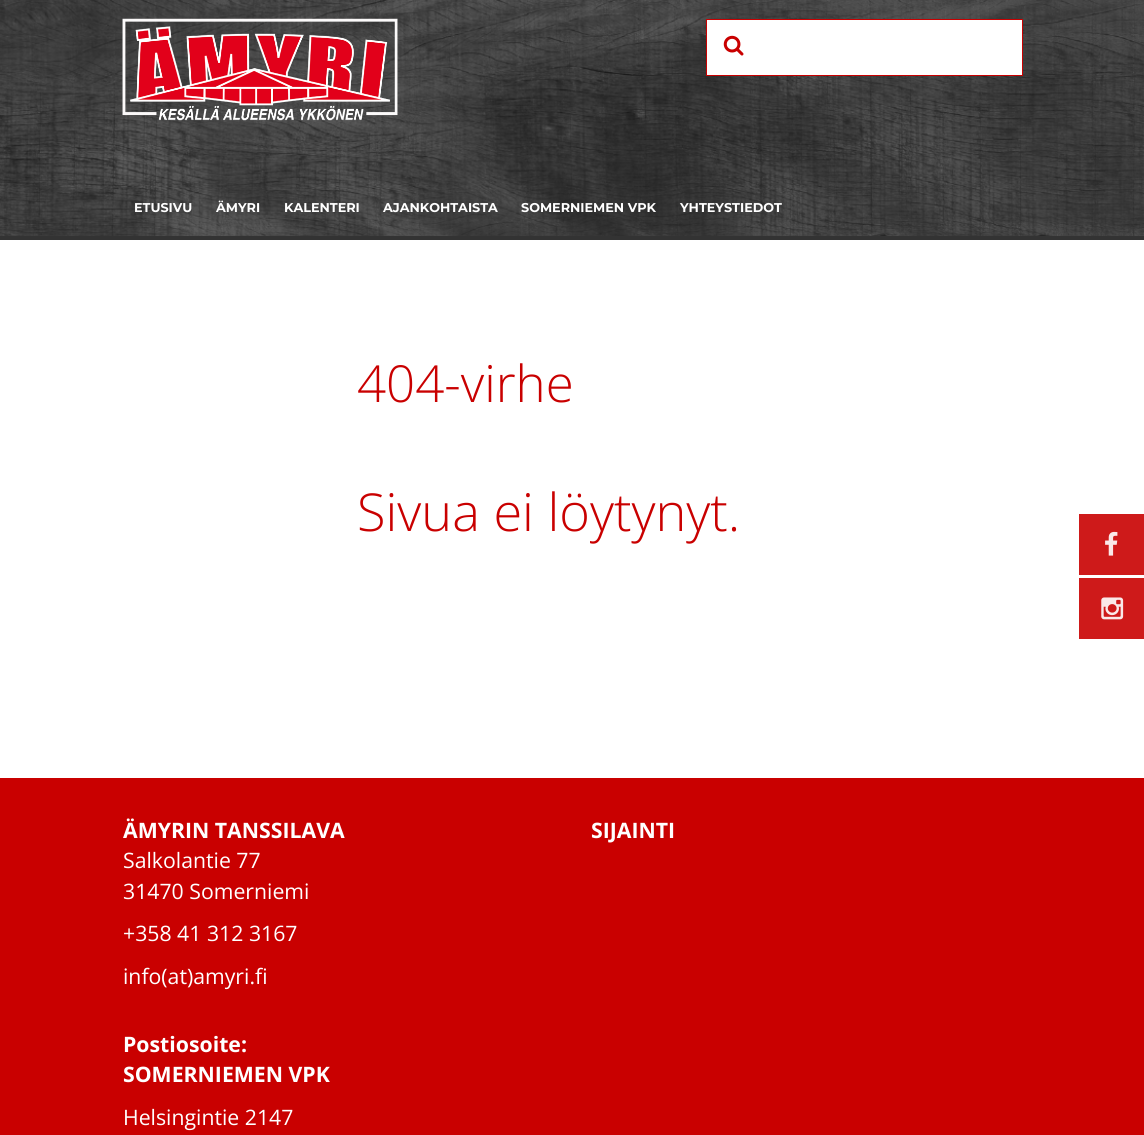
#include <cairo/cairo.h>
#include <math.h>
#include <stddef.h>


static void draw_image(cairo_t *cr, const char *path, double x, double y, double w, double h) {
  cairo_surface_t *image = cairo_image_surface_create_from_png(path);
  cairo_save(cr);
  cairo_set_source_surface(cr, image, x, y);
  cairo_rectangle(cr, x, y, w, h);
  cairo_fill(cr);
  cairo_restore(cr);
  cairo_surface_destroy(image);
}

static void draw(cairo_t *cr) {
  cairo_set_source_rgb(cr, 1, 1, 1);
  cairo_paint(cr);
  cairo_set_source_rgb(cr, 51 / 255.0, 51 / 255.0, 51 / 255.0);
  cairo_rectangle(cr, 0, 0, 1144, 240);
  cairo_fill(cr);
  draw_image(cr, "images/1.png", 0, 0, 1144, 236);
  draw_image(cr, "images/2.png", 122, 18, 276, 103);
  cairo_set_source_rgb(cr, 1, 1, 1);
  cairo_rectangle(cr, 706.5, 19.5, 316, 56);
  cairo_fill_preserve(cr);
  cairo_set_source_rgb(cr, 201 / 255.0, 0, 0);
  cairo_set_line_width(cr, 1);
  cairo_stroke(cr);
  draw_image(cr, "images/3.png", 723, 35, 21, 21);
  cairo_set_source_rgb(cr, 206 / 255.0, 26 / 255.0, 26 / 255.0);
  cairo_rectangle(cr, 1079, 514, 65, 61);
  cairo_fill(cr);
  draw_image(cr, "images/4.png", 1105, 531, 13, 25);
  cairo_rectangle(cr, 1079, 578, 65, 61);
  cairo_fill(cr);
  draw_image(cr, "images/5.png", 1101, 597, 23, 23);
  cairo_set_source_rgb(cr, 201 / 255.0, 0, 0);
  cairo_rectangle(cr, 0, 778, 1144, 357);
  cairo_fill(cr);
  cairo_select_font_face(cr, "Montserrat Thin", CAIRO_FONT_SLANT_NORMAL, CAIRO_FONT_WEIGHT_NORMAL);
  cairo_set_font_size(cr, 12.75);
  cairo_set_source_rgb(cr, 1, 1, 1);
  cairo_move_to(cr, 134, 212);
  cairo_show_text(cr, "ETUSIVU");
  cairo_move_to(cr, 216, 212);
  cairo_show_text(cr, "ÄMYRI");
  cairo_move_to(cr, 284, 212);
  cairo_show_text(cr, "KALENTERI");
  cairo_move_to(cr, 383, 212);
  cairo_show_text(cr, "AJANKOHTAISTA");
  cairo_move_to(cr, 521, 212);
  cairo_show_text(cr, "SOMERNIEMEN VPK");
  cairo_move_to(cr, 680, 212);
  cairo_show_text(cr, "YHTEYSTIEDOT");
  cairo_select_font_face(cr, "Open Sans Light", CAIRO_FONT_SLANT_NORMAL, CAIRO_FONT_WEIGHT_NORMAL);
  cairo_set_font_size(cr, 51);
  cairo_set_source_rgb(cr, 201 / 255.0, 0, 0);
  cairo_move_to(cr, 357, 402);
  cairo_show_text(cr, "404-virhe");
  cairo_set_font_size(cr, 52.25);
  cairo_move_to(cr, 357, 531);
  cairo_show_text(cr, "Sivua ei löytynyt.");
  cairo_select_font_face(cr, "Open Sans", CAIRO_FONT_SLANT_NORMAL, CAIRO_FONT_WEIGHT_BOLD);
  cairo_set_font_size(cr, 21.25);
  cairo_set_source_rgb(cr, 1, 1, 1);
  cairo_move_to(cr, 123, 838);
  cairo_show_text(cr, "ÄMYRIN TANSSILAVA");
  cairo_select_font_face(cr, "Open Sans", CAIRO_FONT_SLANT_NORMAL, CAIRO_FONT_WEIGHT_NORMAL);
  cairo_move_to(cr, 123, 868);
  cairo_show_text(cr, "Salkolantie 77");
  cairo_move_to(cr, 123, 899);
  cairo_show_text(cr, "31470 Somerniemi");
  cairo_move_to(cr, 123, 941);
  cairo_show_text(cr, "+358 41 312 3167");
  cairo_move_to(cr, 123, 984);
  cairo_show_text(cr, "info(at)amyri.fi");
  cairo_select_font_face(cr, "Open Sans", CAIRO_FONT_SLANT_NORMAL, CAIRO_FONT_WEIGHT_BOLD);
  cairo_move_to(cr, 123, 1052);
  cairo_show_text(cr, "Postiosoite:");
  cairo_move_to(cr, 123, 1082);
  cairo_show_text(cr, "SOMERNIEMEN VPK");
  cairo_select_font_face(cr, "Open Sans", CAIRO_FONT_SLANT_NORMAL, CAIRO_FONT_WEIGHT_NORMAL);
  cairo_move_to(cr, 123, 1125);
  cairo_show_text(cr, "Helsingintie 2147");
  cairo_select_font_face(cr, "Open Sans", CAIRO_FONT_SLANT_NORMAL, CAIRO_FONT_WEIGHT_BOLD);
  cairo_move_to(cr, 591, 838);
  cairo_show_text(cr, "SIJAINTI");
}

int main(void) {
  cairo_surface_t *surface = cairo_image_surface_create(CAIRO_FORMAT_RGB24, 1144, 1135);
  cairo_t *cr = cairo_create(surface);
  cairo_font_options_t *options = cairo_font_options_create();
  cairo_font_options_set_hint_metrics(options, CAIRO_HINT_METRICS_OFF);
  cairo_font_options_set_hint_style(options, CAIRO_HINT_STYLE_NONE);
  cairo_set_font_options(cr, options);
  cairo_set_miter_limit(cr, 4);
  draw(cr);
  cairo_surface_write_to_png(surface, "out.png");
  cairo_font_options_destroy(options);
  cairo_destroy(cr);
  cairo_surface_destroy(surface);
  return 0;
}
